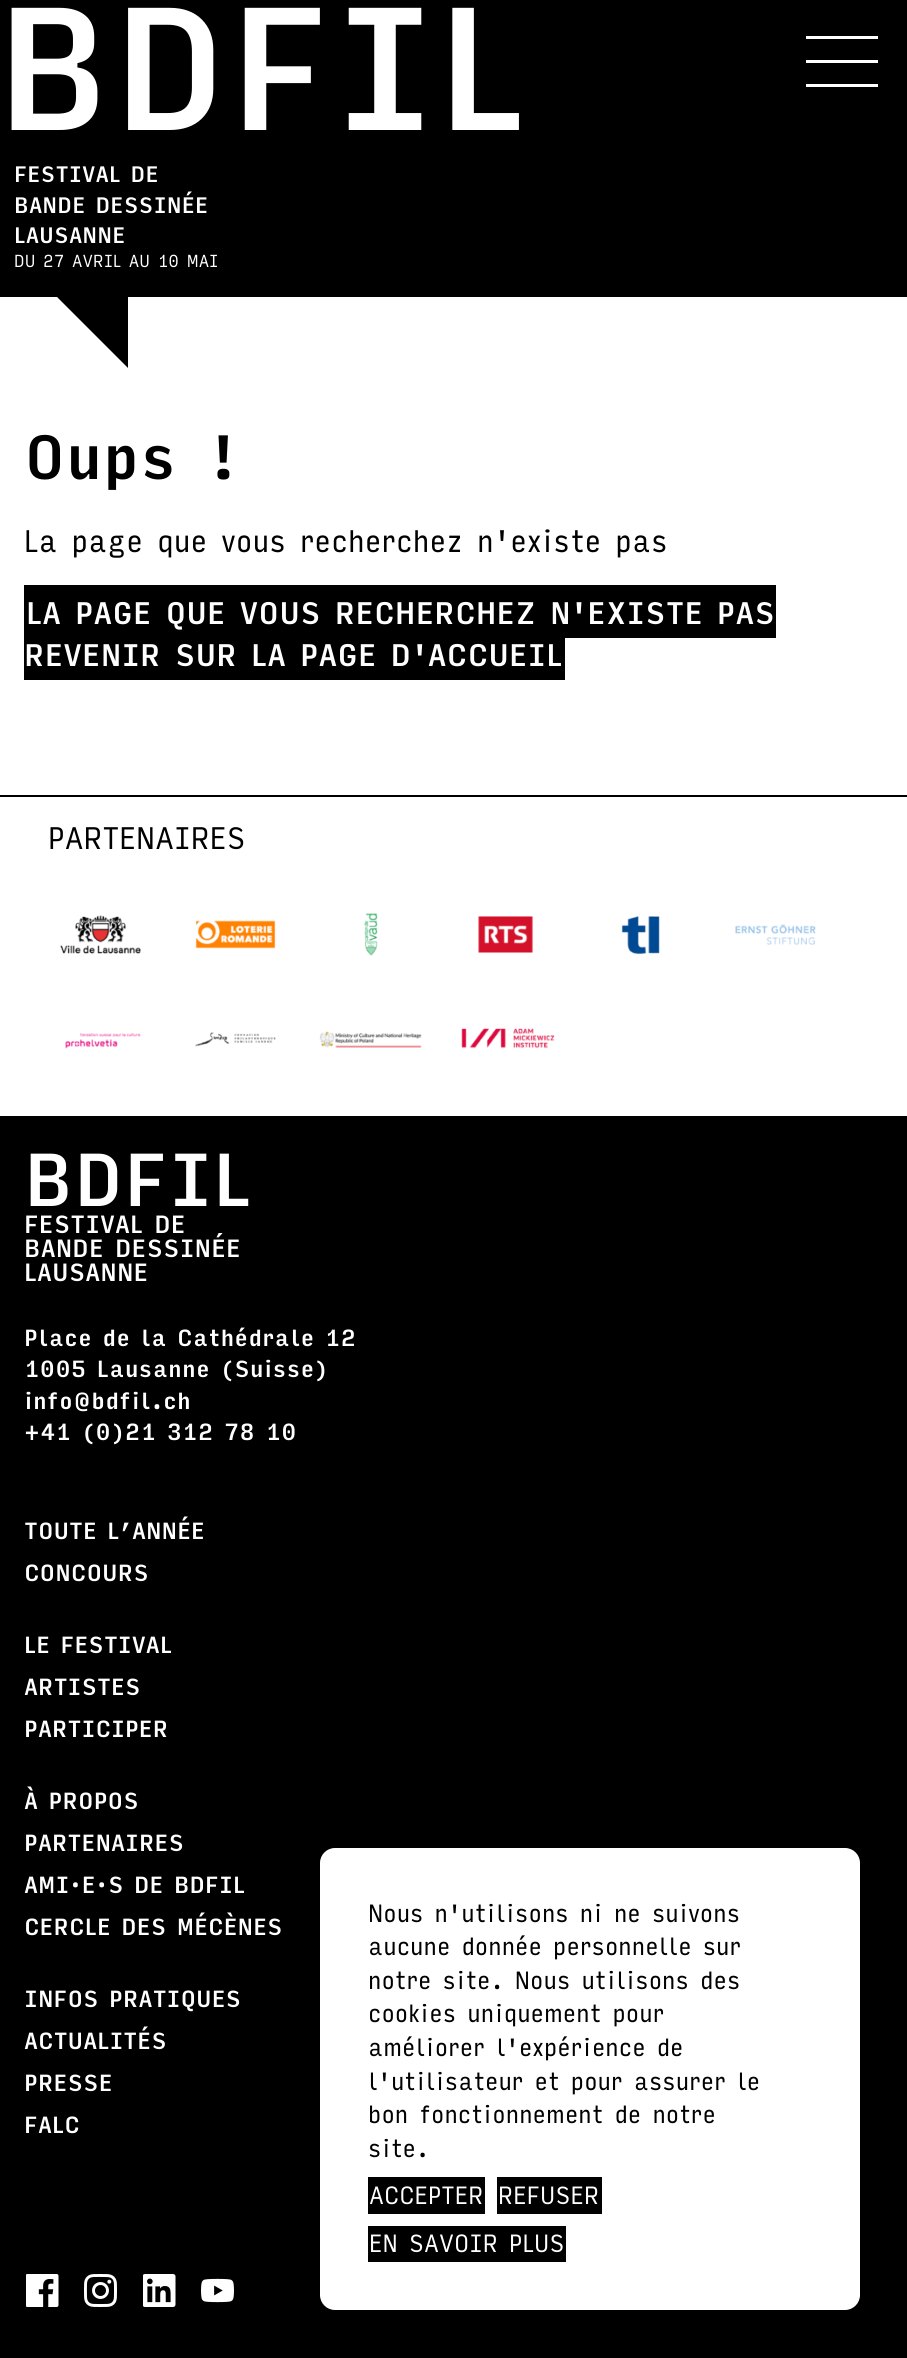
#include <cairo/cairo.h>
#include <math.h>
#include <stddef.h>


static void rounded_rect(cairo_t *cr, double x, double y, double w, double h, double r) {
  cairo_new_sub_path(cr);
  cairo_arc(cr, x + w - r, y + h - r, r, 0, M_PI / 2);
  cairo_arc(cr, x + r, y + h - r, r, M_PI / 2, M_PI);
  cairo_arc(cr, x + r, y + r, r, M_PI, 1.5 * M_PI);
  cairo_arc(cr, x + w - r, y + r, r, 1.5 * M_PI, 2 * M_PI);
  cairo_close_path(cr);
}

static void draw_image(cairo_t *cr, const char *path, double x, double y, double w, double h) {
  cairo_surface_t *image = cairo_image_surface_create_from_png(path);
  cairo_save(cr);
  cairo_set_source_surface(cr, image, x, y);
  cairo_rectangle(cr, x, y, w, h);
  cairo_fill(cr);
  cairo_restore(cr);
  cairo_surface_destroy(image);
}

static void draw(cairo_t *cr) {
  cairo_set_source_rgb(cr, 1, 1, 1);
  cairo_paint(cr);
  cairo_set_source_rgb(cr, 0, 0, 0);
  cairo_rectangle(cr, 0, 0, 907, 297);
  cairo_fill(cr);
  cairo_new_path(cr);
  cairo_move_to(cr, 128, 368);
  cairo_line_to(cr, 43, 283);
  cairo_line_to(cr, 128, 283);
  cairo_close_path(cr);
  cairo_fill(cr);
  cairo_set_source_rgb(cr, 1, 1, 1);
  cairo_rectangle(cr, 806, 36, 72, 3);
  cairo_fill(cr);
  cairo_rectangle(cr, 806, 60, 72, 3);
  cairo_fill(cr);
  cairo_rectangle(cr, 806, 84, 72, 3);
  cairo_fill(cr);
  cairo_set_source_rgb(cr, 0, 0, 0);
  cairo_rectangle(cr, 24, 585, 752, 53);
  cairo_fill(cr);
  cairo_rectangle(cr, 24, 638, 541, 42);
  cairo_fill(cr);
  cairo_rectangle(cr, 0, 795, 907, 2);
  cairo_fill(cr);
  draw_image(cr, "images/1.png", 60, 915, 81, 39);
  draw_image(cr, "images/2.png", 195, 920, 81, 29);
  draw_image(cr, "images/3.png", 363, 913, 15, 43);
  draw_image(cr, "images/4.png", 478, 916, 55, 37);
  draw_image(cr, "images/5.png", 621, 916, 39, 39);
  draw_image(cr, "images/6.png", 735, 924, 81, 21);
  draw_image(cr, "images/7.png", 65, 1032, 76, 17);
  draw_image(cr, "images/8.png", 195, 1032, 81, 15);
  draw_image(cr, "images/9.png", 319, 1031, 103, 17);
  draw_image(cr, "images/10.png", 461, 1028, 94, 21);
  cairo_rectangle(cr, 0, 1116, 907, 1242);
  cairo_fill(cr);
  draw_image(cr, "images/11.png", 26, 2274, 33, 33);
  draw_image(cr, "images/12.png", 84, 2274, 33, 33);
  draw_image(cr, "images/13.png", 143, 2274, 33, 33);
  draw_image(cr, "images/14.png", 201, 2278, 33, 25);
  cairo_set_source_rgb(cr, 1, 1, 1);
  rounded_rect(cr, 320, 1848, 540, 462, 15);
  cairo_fill(cr);
  cairo_set_source_rgb(cr, 0, 0, 0);
  cairo_rectangle(cr, 368, 2177, 117, 37);
  cairo_fill(cr);
  cairo_rectangle(cr, 497, 2177, 105, 37);
  cairo_fill(cr);
  cairo_rectangle(cr, 368, 2226, 198, 36);
  cairo_fill(cr);
  cairo_select_font_face(cr, "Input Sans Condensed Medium", CAIRO_FONT_SLANT_NORMAL, CAIRO_FONT_WEIGHT_NORMAL);
  cairo_set_font_size(cr, 168);
  cairo_set_source_rgb(cr, 1, 1, 1);
  cairo_move_to(cr, -4, 130);
  cairo_show_text(cr, "BDFIL");
  cairo_set_font_size(cr, 21.5);
  cairo_move_to(cr, 14, 182);
  cairo_show_text(cr, "FESTIVAL DE");
  cairo_move_to(cr, 14, 213);
  cairo_show_text(cr, "BANDE DESSINÉE");
  cairo_move_to(cr, 14, 243);
  cairo_show_text(cr, "LAUSANNE");
  cairo_select_font_face(cr, "Input Sans Condensed", CAIRO_FONT_SLANT_NORMAL, CAIRO_FONT_WEIGHT_NORMAL);
  cairo_set_font_size(cr, 16.75);
  cairo_move_to(cr, 14, 267);
  cairo_show_text(cr, "DU 27 AVRIL AU 10 MAI");
  cairo_select_font_face(cr, "Input Sans Condensed Medium", CAIRO_FONT_SLANT_NORMAL, CAIRO_FONT_WEIGHT_NORMAL);
  cairo_set_font_size(cr, 60);
  cairo_set_source_rgb(cr, 0, 0, 0);
  cairo_move_to(cr, 24, 479);
  cairo_show_text(cr, "Oups !");
  cairo_select_font_face(cr, "Input Sans Condensed", CAIRO_FONT_SLANT_NORMAL, CAIRO_FONT_WEIGHT_NORMAL);
  cairo_set_font_size(cr, 30);
  cairo_move_to(cr, 24, 552);
  cairo_show_text(cr, "La page que vous recherchez n'existe pas");
  cairo_select_font_face(cr, "Input Sans Condensed Medium", CAIRO_FONT_SLANT_NORMAL, CAIRO_FONT_WEIGHT_NORMAL);
  cairo_set_source_rgb(cr, 1, 1, 1);
  cairo_move_to(cr, 26, 624);
  cairo_show_text(cr, "LA PAGE QUE VOUS RECHERCHEZ N'EXISTE PAS");
  cairo_move_to(cr, 24, 666);
  cairo_show_text(cr, "REVENIR SUR LA PAGE D'ACCUEIL");
  cairo_select_font_face(cr, "Input Sans Condensed", CAIRO_FONT_SLANT_NORMAL, CAIRO_FONT_WEIGHT_NORMAL);
  cairo_set_source_rgb(cr, 0, 0, 0);
  cairo_move_to(cr, 48, 849);
  cairo_show_text(cr, "PARTENAIRES");
  cairo_select_font_face(cr, "Input Sans Condensed Medium", CAIRO_FONT_SLANT_NORMAL, CAIRO_FONT_WEIGHT_NORMAL);
  cairo_set_font_size(cr, 72);
  cairo_set_source_rgb(cr, 1, 1, 1);
  cairo_move_to(cr, 24, 1206);
  cairo_show_text(cr, "BDFIL");
  cairo_set_font_size(cr, 24);
  cairo_move_to(cr, 24, 1233);
  cairo_show_text(cr, "FESTIVAL DE");
  cairo_move_to(cr, 24, 1257);
  cairo_show_text(cr, "BANDE DESSINÉE");
  cairo_move_to(cr, 24, 1281);
  cairo_show_text(cr, "LAUSANNE");
  cairo_set_font_size(cr, 22.5);
  cairo_move_to(cr, 24, 1346);
  cairo_show_text(cr, "Place de la Cathédrale 12");
  cairo_move_to(cr, 24, 1377);
  cairo_show_text(cr, "1005 Lausanne (Suisse)");
  cairo_move_to(cr, 24, 1409);
  cairo_show_text(cr, "info@bdfil.ch");
  cairo_move_to(cr, 24, 1440);
  cairo_show_text(cr, "+41 (0)21 312 78 10");
  cairo_move_to(cr, 24, 1539);
  cairo_show_text(cr, "TOUTE L’ANNÉE");
  cairo_move_to(cr, 24, 1581);
  cairo_show_text(cr, "CONCOURS");
  cairo_move_to(cr, 24, 1653);
  cairo_show_text(cr, "LE FESTIVAL");
  cairo_move_to(cr, 24, 1695);
  cairo_show_text(cr, "ARTISTES");
  cairo_move_to(cr, 24, 1737);
  cairo_show_text(cr, "PARTICIPER");
  cairo_move_to(cr, 24, 1809);
  cairo_show_text(cr, "À PROPOS");
  cairo_move_to(cr, 24, 1851);
  cairo_show_text(cr, "PARTENAIRES");
  cairo_move_to(cr, 24, 1893);
  cairo_show_text(cr, "AMI·E·S DE BDFIL");
  cairo_move_to(cr, 24, 1935);
  cairo_show_text(cr, "CERCLE DES MÉCÈNES");
  cairo_move_to(cr, 24, 2007);
  cairo_show_text(cr, "INFOS PRATIQUES");
  cairo_move_to(cr, 24, 2049);
  cairo_show_text(cr, "ACTUALITÉS");
  cairo_move_to(cr, 24, 2091);
  cairo_show_text(cr, "PRESSE");
  cairo_move_to(cr, 24, 2133);
  cairo_show_text(cr, "FALC");
  cairo_select_font_face(cr, "Input Sans Condensed", CAIRO_FONT_SLANT_NORMAL, CAIRO_FONT_WEIGHT_NORMAL);
  cairo_set_font_size(cr, 24);
  cairo_set_source_rgb(cr, 0, 0, 0);
  cairo_move_to(cr, 368, 1922);
  cairo_show_text(cr, "Nous n'utilisons ni ne suivons");
  cairo_move_to(cr, 368, 1955);
  cairo_show_text(cr, "aucune donnée personnelle sur");
  cairo_move_to(cr, 368, 1989);
  cairo_show_text(cr, "notre site. Nous utilisons des");
  cairo_move_to(cr, 368, 2022);
  cairo_show_text(cr, "cookies uniquement pour");
  cairo_move_to(cr, 368, 2056);
  cairo_show_text(cr, "améliorer l'expérience de");
  cairo_move_to(cr, 368, 2090);
  cairo_show_text(cr, "l'utilisateur et pour assurer le");
  cairo_move_to(cr, 368, 2123);
  cairo_show_text(cr, "bon fonctionnement de notre");
  cairo_move_to(cr, 368, 2157);
  cairo_show_text(cr, "site.");
  cairo_set_source_rgb(cr, 1, 1, 1);
  cairo_move_to(cr, 369, 2204);
  cairo_show_text(cr, "ACCEPTER");
  cairo_move_to(cr, 498, 2204);
  cairo_show_text(cr, "REFUSER");
  cairo_move_to(cr, 369, 2252);
  cairo_show_text(cr, "EN SAVOIR PLUS");
}

int main(void) {
  cairo_surface_t *surface = cairo_image_surface_create(CAIRO_FORMAT_RGB24, 907, 2358);
  cairo_t *cr = cairo_create(surface);
  cairo_font_options_t *options = cairo_font_options_create();
  cairo_font_options_set_hint_metrics(options, CAIRO_HINT_METRICS_OFF);
  cairo_font_options_set_hint_style(options, CAIRO_HINT_STYLE_NONE);
  cairo_set_font_options(cr, options);
  cairo_set_miter_limit(cr, 4);
  draw(cr);
  cairo_surface_write_to_png(surface, "out.png");
  cairo_font_options_destroy(options);
  cairo_destroy(cr);
  cairo_surface_destroy(surface);
  return 0;
}
